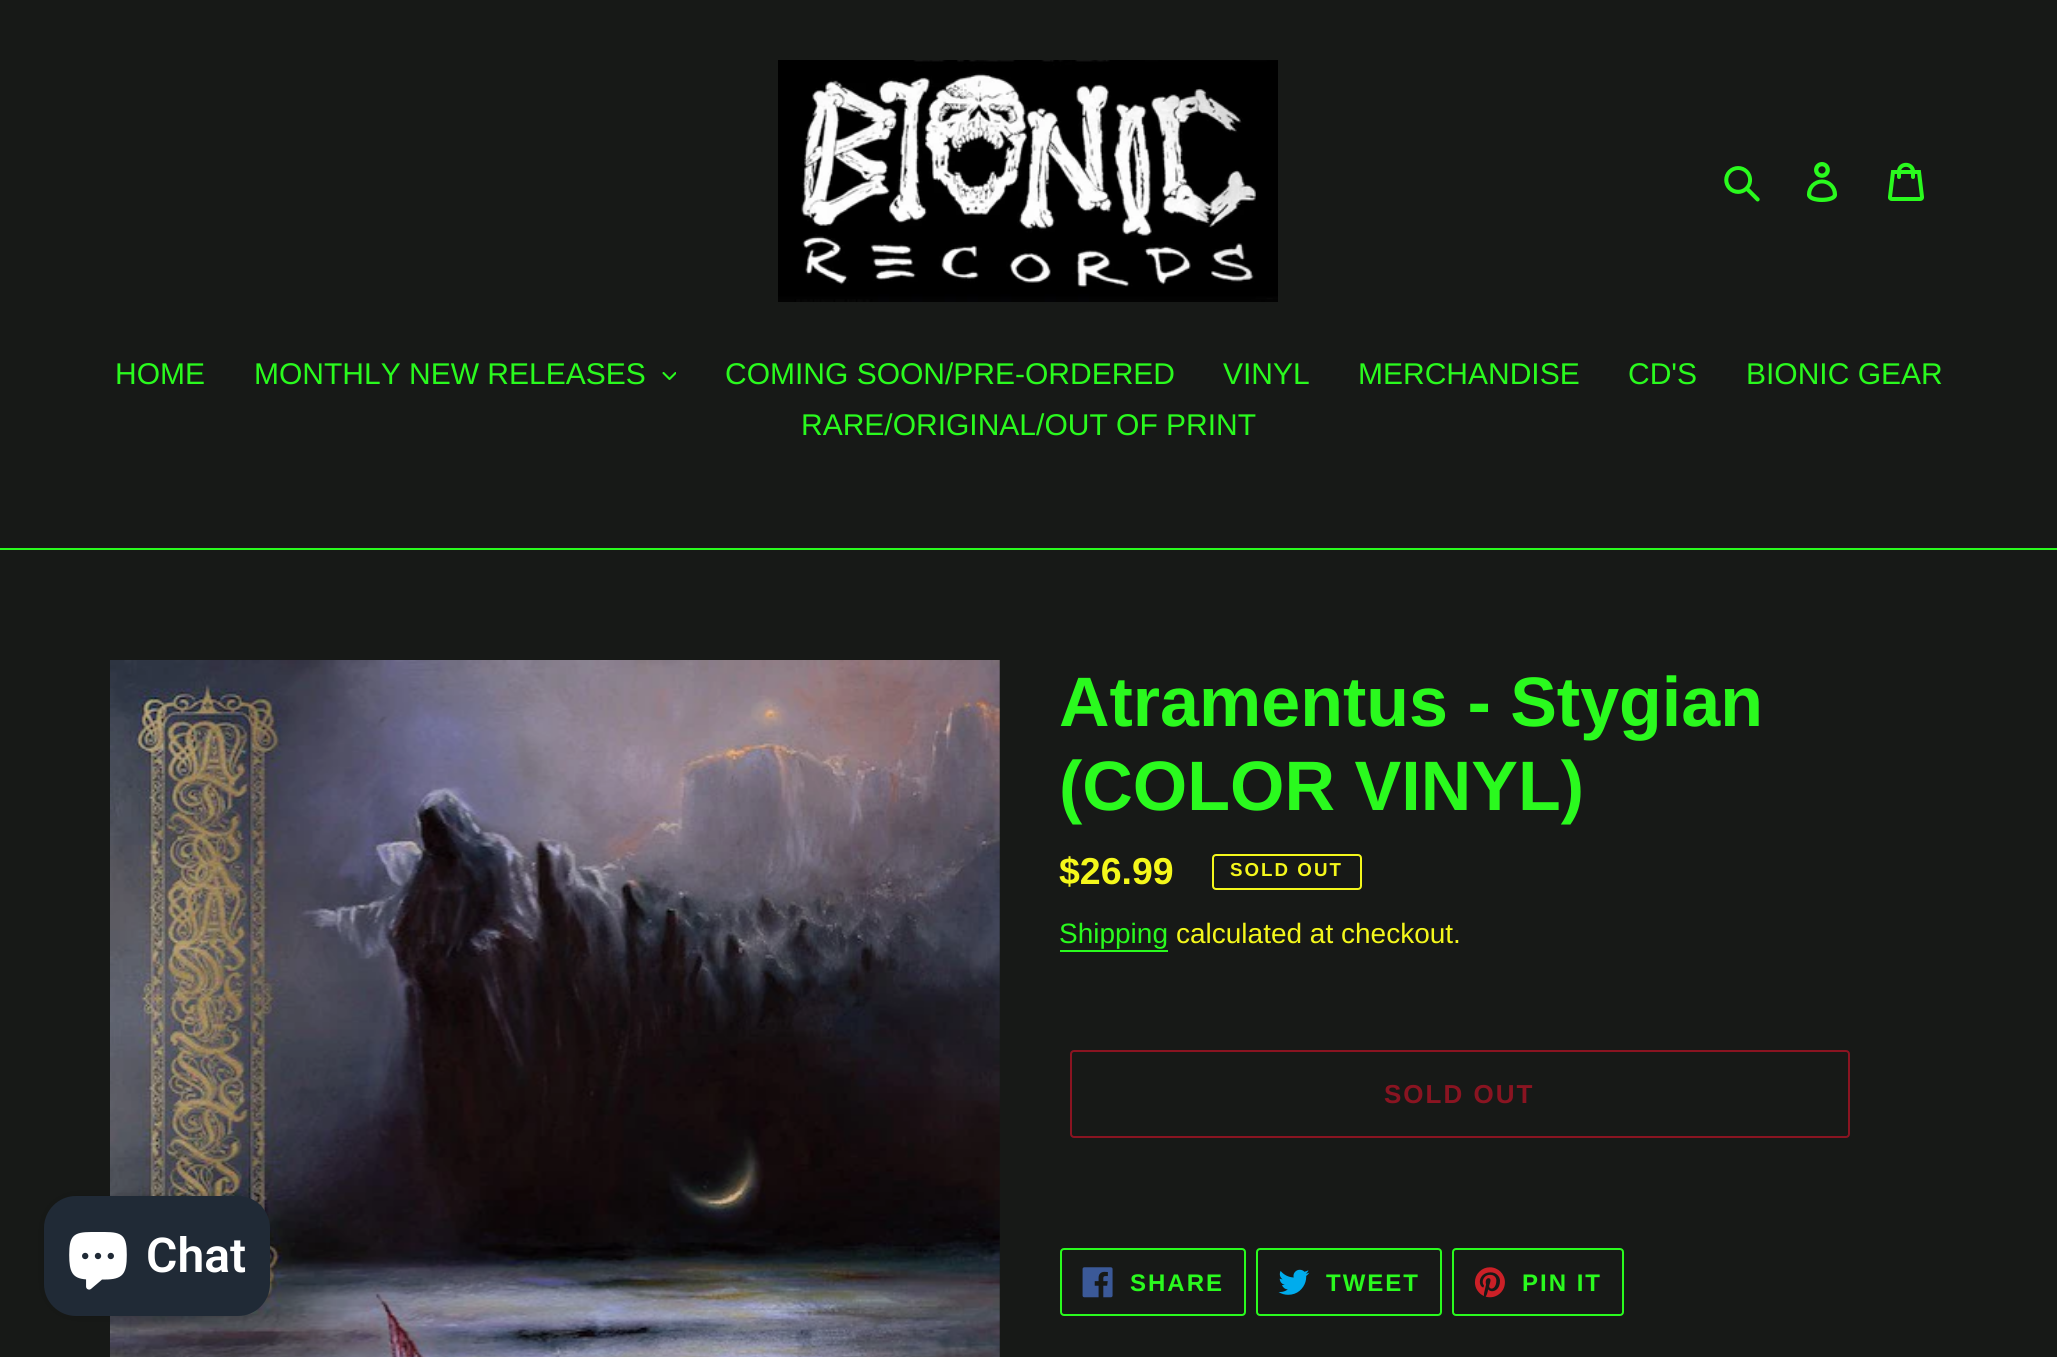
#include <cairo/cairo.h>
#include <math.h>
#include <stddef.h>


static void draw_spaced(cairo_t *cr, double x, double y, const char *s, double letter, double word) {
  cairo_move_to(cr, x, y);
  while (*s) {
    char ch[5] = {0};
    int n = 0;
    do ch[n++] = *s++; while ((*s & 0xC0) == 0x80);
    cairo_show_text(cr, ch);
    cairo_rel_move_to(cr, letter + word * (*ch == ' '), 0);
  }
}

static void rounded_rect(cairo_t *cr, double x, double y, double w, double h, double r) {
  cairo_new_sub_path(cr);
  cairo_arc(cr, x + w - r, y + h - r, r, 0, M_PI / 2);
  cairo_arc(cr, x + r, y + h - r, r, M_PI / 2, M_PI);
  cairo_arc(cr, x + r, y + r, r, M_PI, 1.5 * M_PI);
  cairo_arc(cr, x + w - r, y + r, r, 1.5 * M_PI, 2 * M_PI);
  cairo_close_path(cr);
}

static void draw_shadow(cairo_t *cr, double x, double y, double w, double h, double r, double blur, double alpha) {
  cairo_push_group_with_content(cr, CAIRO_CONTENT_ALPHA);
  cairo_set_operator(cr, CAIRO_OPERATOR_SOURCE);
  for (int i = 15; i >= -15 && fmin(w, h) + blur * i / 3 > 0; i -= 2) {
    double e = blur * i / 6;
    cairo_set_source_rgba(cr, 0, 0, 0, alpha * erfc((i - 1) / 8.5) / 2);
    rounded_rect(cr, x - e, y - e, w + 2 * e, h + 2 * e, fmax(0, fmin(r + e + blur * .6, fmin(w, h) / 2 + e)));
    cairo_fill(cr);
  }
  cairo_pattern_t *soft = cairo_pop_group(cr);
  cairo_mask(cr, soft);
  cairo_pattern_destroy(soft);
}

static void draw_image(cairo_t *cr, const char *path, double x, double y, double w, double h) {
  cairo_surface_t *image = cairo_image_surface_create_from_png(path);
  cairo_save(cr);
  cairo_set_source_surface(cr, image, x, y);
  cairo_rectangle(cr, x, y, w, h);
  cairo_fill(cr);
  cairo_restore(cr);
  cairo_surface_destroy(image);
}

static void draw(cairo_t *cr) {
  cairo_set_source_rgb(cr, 23 / 255.0, 25 / 255.0, 23 / 255.0);
  cairo_paint(cr);
  draw_image(cr, "images/1.png", 778, 60, 500, 242);
  draw_image(cr, "images/2.png", 1724, 166, 36, 36);
  draw_image(cr, "images/3.png", 1807, 162, 31, 40);
  draw_image(cr, "images/4.png", 1888, 162, 36, 39);
  cairo_set_source_rgb(cr, 42 / 255.0, 250 / 255.0, 30 / 255.0);
  cairo_rectangle(cr, 0, 548, 2057, 2);
  cairo_fill(cr);
  draw_image(cr, "images/5.png", 662, 372, 14, 8);
  draw_image(cr, "images/7.png", 110, 660, 890, 697);
  cairo_set_source_rgb(cr, 0, 0, 0);
  draw_shadow(cr, 44, 1196, 226, 120, 32, 5, 0.15);
  cairo_set_source_rgb(cr, 32 / 255.0, 42 / 255.0, 54 / 255.0);
  rounded_rect(cr, 44, 1196, 226, 120, 32);
  cairo_fill(cr);
  draw_image(cr, "images/6.png", 69, 1232, 58, 58);
  rounded_rect(cr, 1213, 855, 148, 34, 3);
  cairo_set_source_rgb(cr, 244 / 255.0, 247 / 255.0, 27 / 255.0);
  cairo_stroke(cr);
  cairo_set_source_rgb(cr, 42 / 255.0, 250 / 255.0, 30 / 255.0);
  cairo_rectangle(cr, 1060, 950, 108, 2);
  cairo_fill(cr);
  rounded_rect(cr, 1071, 1051, 778, 86, 3);
  cairo_set_source_rgb(cr, 138 / 255.0, 20 / 255.0, 33 / 255.0);
  cairo_stroke(cr);
  rounded_rect(cr, 1061, 1249, 184, 66, 3);
  cairo_set_source_rgb(cr, 42 / 255.0, 250 / 255.0, 30 / 255.0);
  cairo_stroke(cr);
  draw_image(cr, "images/8.png", 1082, 1267, 31, 31);
  rounded_rect(cr, 1257, 1249, 184, 66, 3);
  cairo_stroke(cr);
  draw_image(cr, "images/9.png", 1278, 1269, 32, 26);
  rounded_rect(cr, 1453, 1249, 170, 66, 3);
  cairo_stroke(cr);
  draw_image(cr, "images/10.png", 1474, 1267, 31, 31);
  cairo_select_font_face(cr, "Liberation Sans", CAIRO_FONT_SLANT_NORMAL, CAIRO_FONT_WEIGHT_NORMAL);
  cairo_set_font_size(cr, 30);
  cairo_move_to(cr, 115, 384);
  cairo_show_text(cr, "HOME");
  cairo_move_to(cr, 254, 384);
  cairo_show_text(cr, "MONTHLY NEW RELEASES");
  cairo_move_to(cr, 725, 384);
  cairo_show_text(cr, "COMING SOON/PRE-ORDERED");
  cairo_move_to(cr, 1223, 384);
  cairo_show_text(cr, "VINYL");
  cairo_move_to(cr, 1358, 384);
  cairo_show_text(cr, "MERCHANDISE");
  cairo_move_to(cr, 1628, 384);
  cairo_show_text(cr, "CD'S");
  cairo_move_to(cr, 1746, 384);
  cairo_show_text(cr, "BIONIC GEAR");
  cairo_move_to(cr, 801, 435);
  cairo_show_text(cr, "RARE/ORIGINAL/OUT OF PRINT");
  cairo_select_font_face(cr, "Roboto SemiBold", CAIRO_FONT_SLANT_NORMAL, CAIRO_FONT_WEIGHT_NORMAL);
  cairo_set_font_size(cr, 48);
  cairo_set_source_rgb(cr, 1, 1, 1);
  cairo_move_to(cr, 146, 1272);
  cairo_show_text(cr, "Chat");
  cairo_select_font_face(cr, "Liberation Sans", CAIRO_FONT_SLANT_NORMAL, CAIRO_FONT_WEIGHT_BOLD);
  cairo_set_font_size(cr, 70);
  cairo_set_source_rgb(cr, 42 / 255.0, 250 / 255.0, 30 / 255.0);
  cairo_move_to(cr, 1059, 726);
  cairo_show_text(cr, "Atramentus - Stygian");
  cairo_move_to(cr, 1059, 810);
  cairo_show_text(cr, "(COLOR VINYL)");
  cairo_set_font_size(cr, 37.5);
  cairo_set_source_rgb(cr, 244 / 255.0, 247 / 255.0, 27 / 255.0);
  cairo_move_to(cr, 1059, 884);
  cairo_show_text(cr, "$26.99");
  cairo_set_font_size(cr, 18.75);
  draw_spaced(cr, 1230, 876, "SOLD OUT", 2, 0);
  cairo_select_font_face(cr, "Liberation Sans", CAIRO_FONT_SLANT_NORMAL, CAIRO_FONT_WEIGHT_NORMAL);
  cairo_set_font_size(cr, 28);
  cairo_set_source_rgb(cr, 42 / 255.0, 250 / 255.0, 30 / 255.0);
  cairo_move_to(cr, 1059, 943);
  cairo_show_text(cr, "Shipping");
  cairo_set_source_rgb(cr, 244 / 255.0, 247 / 255.0, 27 / 255.0);
  cairo_move_to(cr, 1176, 943);
  cairo_show_text(cr, "calculated at checkout.");
  cairo_select_font_face(cr, "Liberation Sans", CAIRO_FONT_SLANT_NORMAL, CAIRO_FONT_WEIGHT_BOLD);
  cairo_set_font_size(cr, 26);
  cairo_set_source_rgb(cr, 138 / 255.0, 20 / 255.0, 33 / 255.0);
  draw_spaced(cr, 1384, 1103, "SOLD OUT", 2, 0);
  cairo_set_font_size(cr, 24);
  cairo_set_source_rgb(cr, 42 / 255.0, 250 / 255.0, 30 / 255.0);
  draw_spaced(cr, 1130, 1291, "SHARE", 2, 0);
  draw_spaced(cr, 1326, 1291, "TWEET", 2, 0);
  draw_spaced(cr, 1522, 1291, "PIN IT", 2, 0);
}

int main(void) {
  cairo_surface_t *surface = cairo_image_surface_create(CAIRO_FORMAT_RGB24, 2057, 1357);
  cairo_t *cr = cairo_create(surface);
  cairo_font_options_t *options = cairo_font_options_create();
  cairo_font_options_set_hint_metrics(options, CAIRO_HINT_METRICS_OFF);
  cairo_font_options_set_hint_style(options, CAIRO_HINT_STYLE_NONE);
  cairo_set_font_options(cr, options);
  cairo_set_miter_limit(cr, 4);
  draw(cr);
  cairo_surface_write_to_png(surface, "out.png");
  cairo_font_options_destroy(options);
  cairo_destroy(cr);
  cairo_surface_destroy(surface);
  return 0;
}
